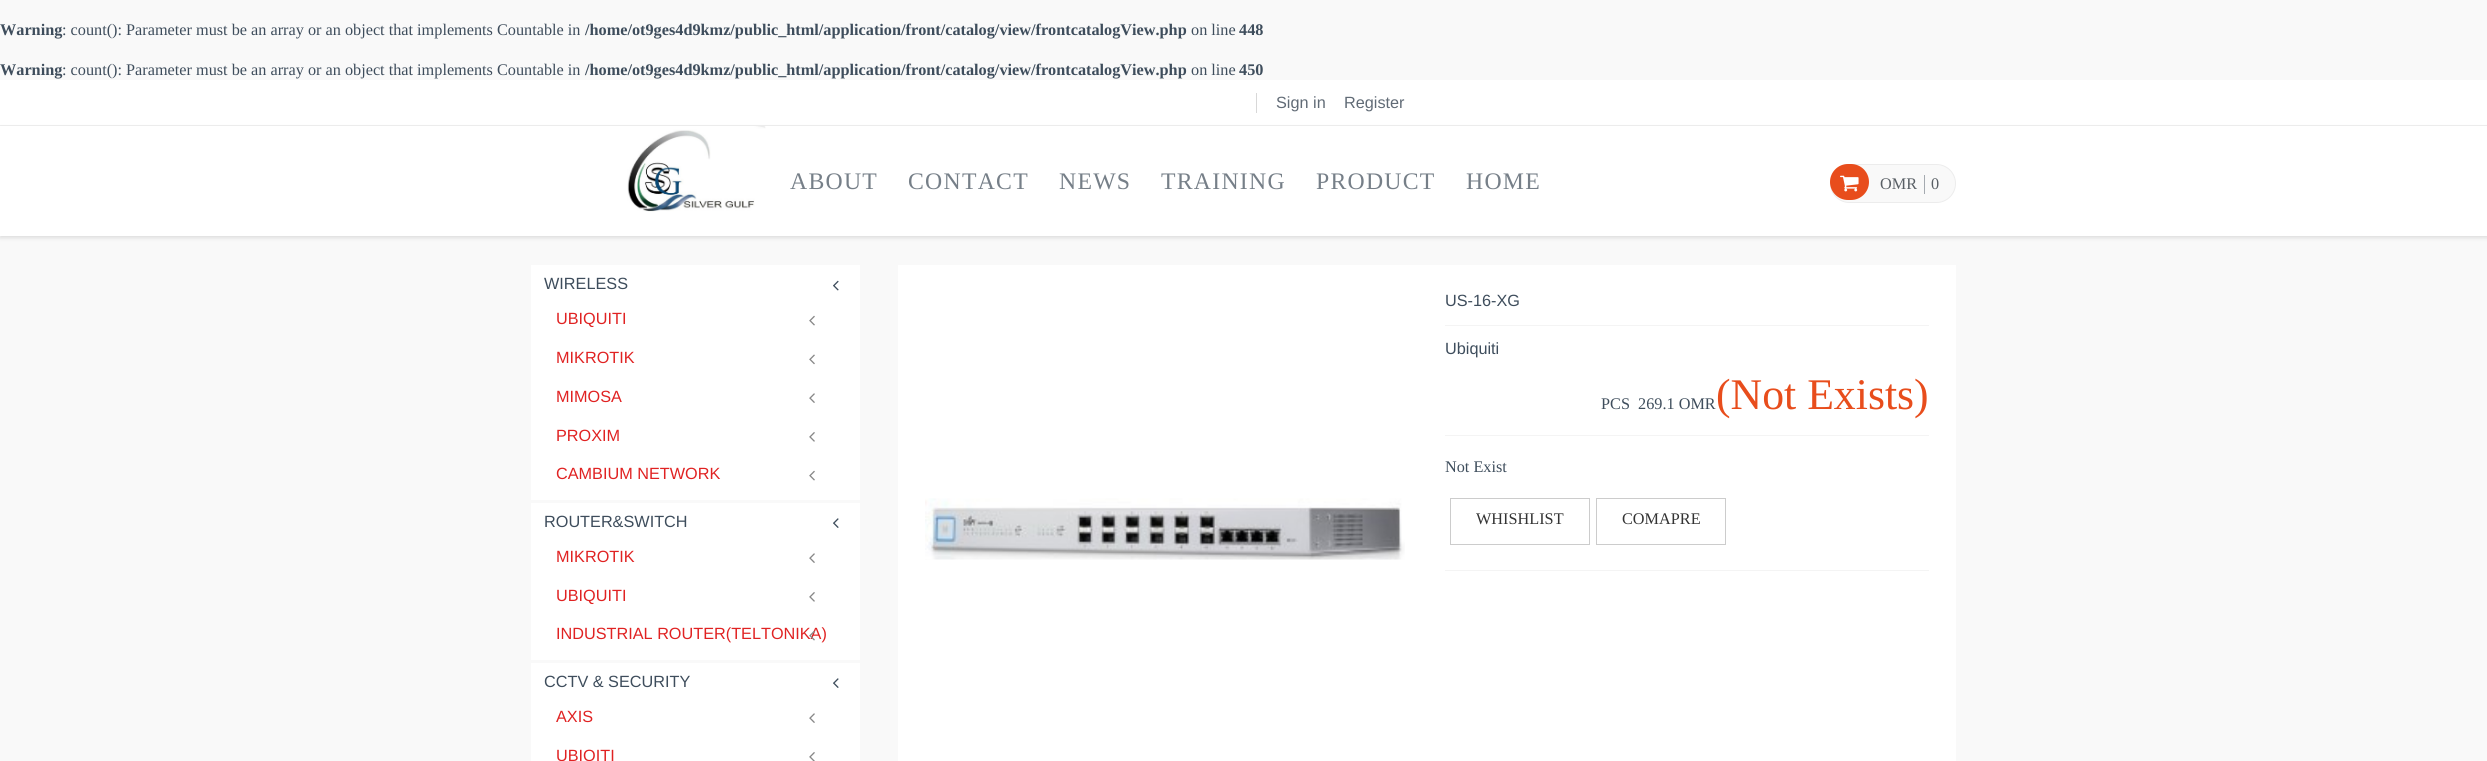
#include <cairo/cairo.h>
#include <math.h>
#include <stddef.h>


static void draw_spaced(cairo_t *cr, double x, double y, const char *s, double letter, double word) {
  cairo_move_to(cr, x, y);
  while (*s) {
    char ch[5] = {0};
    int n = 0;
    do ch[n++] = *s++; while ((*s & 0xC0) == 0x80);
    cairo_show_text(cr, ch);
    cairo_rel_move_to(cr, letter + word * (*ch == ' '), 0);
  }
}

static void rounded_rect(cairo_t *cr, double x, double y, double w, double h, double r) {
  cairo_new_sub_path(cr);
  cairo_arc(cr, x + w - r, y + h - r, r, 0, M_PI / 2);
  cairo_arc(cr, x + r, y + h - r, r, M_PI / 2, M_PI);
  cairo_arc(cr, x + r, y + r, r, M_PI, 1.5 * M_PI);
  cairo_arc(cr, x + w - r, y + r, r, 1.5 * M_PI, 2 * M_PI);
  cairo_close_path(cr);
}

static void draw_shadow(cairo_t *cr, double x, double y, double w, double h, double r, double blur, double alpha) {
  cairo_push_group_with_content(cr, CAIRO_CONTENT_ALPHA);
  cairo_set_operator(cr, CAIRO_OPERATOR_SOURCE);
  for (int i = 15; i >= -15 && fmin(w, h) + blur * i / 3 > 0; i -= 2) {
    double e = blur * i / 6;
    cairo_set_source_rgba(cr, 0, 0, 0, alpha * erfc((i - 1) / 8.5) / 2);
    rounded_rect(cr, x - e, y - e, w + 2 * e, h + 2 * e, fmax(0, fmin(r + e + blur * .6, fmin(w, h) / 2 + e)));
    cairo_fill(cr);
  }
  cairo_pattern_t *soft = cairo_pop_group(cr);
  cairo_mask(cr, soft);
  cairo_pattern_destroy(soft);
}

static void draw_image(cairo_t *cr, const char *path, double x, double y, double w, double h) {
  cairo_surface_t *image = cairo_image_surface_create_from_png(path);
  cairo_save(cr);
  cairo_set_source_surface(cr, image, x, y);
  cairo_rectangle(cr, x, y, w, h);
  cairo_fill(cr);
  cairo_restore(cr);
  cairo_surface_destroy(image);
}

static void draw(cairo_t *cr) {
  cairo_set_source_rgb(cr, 249 / 255.0, 249 / 255.0, 249 / 255.0);
  cairo_paint(cr);
  cairo_set_source_rgb(cr, 1, 1, 1);
  cairo_rectangle(cr, 0, 80, 2487, 45);
  cairo_fill(cr);
  cairo_set_source_rgb(cr, 238 / 255.0, 238 / 255.0, 238 / 255.0);
  cairo_rectangle(cr, 0, 125, 2487, 1);
  cairo_fill(cr);
  cairo_set_source_rgb(cr, 216 / 255.0, 216 / 255.0, 216 / 255.0);
  cairo_rectangle(cr, 1256, 93, 1, 20);
  cairo_fill(cr);
  cairo_set_source_rgb(cr, 221 / 255.0, 221 / 255.0, 221 / 255.0);
  draw_shadow(cr, 0, 128, 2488, 110, 0, 2, 1);
  cairo_set_source_rgb(cr, 1, 1, 1);
  cairo_rectangle(cr, 0, 126, 2487, 110);
  cairo_fill(cr);
  draw_image(cr, "images/1.png", 627, 126, 139, 86);
  cairo_set_source_rgb(cr, 249 / 255.0, 249 / 255.0, 249 / 255.0);
  rounded_rect(cr, 1830.5, 164.5, 125, 38, 19);
  cairo_fill_preserve(cr);
  cairo_set_source_rgb(cr, 236 / 255.0, 236 / 255.0, 236 / 255.0);
  cairo_set_line_width(cr, 1);
  cairo_stroke(cr);
  cairo_set_source_rgb(cr, 232 / 255.0, 77 / 255.0, 28 / 255.0);
  rounded_rect(cr, 1830, 164, 39, 36, 18);
  cairo_fill(cr);
  draw_image(cr, "images/2.png", 1840, 175, 19, 17);
  cairo_set_source_rgb(cr, 165 / 255.0, 170 / 255.0, 176 / 255.0);
  cairo_rectangle(cr, 1924, 175, 1, 19);
  cairo_fill(cr);
  cairo_set_source_rgb(cr, 1, 1, 1);
  cairo_rectangle(cr, 531, 265, 329, 235);
  cairo_fill(cr);
  draw_image(cr, "images/3.png", 833, 280, 6, 11);
  draw_image(cr, "images/4.png", 809, 315, 6, 11);
  draw_image(cr, "images/5.png", 809, 354, 6, 11);
  draw_image(cr, "images/6.png", 809, 393, 6, 10);
  draw_image(cr, "images/7.png", 809, 432, 6, 10);
  draw_image(cr, "images/4.png", 809, 470, 6, 11);
  cairo_rectangle(cr, 531, 503, 329, 157);
  cairo_fill(cr);
  draw_image(cr, "images/8.png", 833, 518, 6, 10);
  draw_image(cr, "images/6.png", 809, 553, 6, 10);
  draw_image(cr, "images/7.png", 809, 592, 6, 10);
  cairo_rectangle(cr, 531, 663, 329, 98);
  cairo_fill(cr);
  draw_image(cr, "images/8.png", 833, 678, 6, 10);
  draw_image(cr, "images/6.png", 809, 713, 6, 10);
  draw_image(cr, "images/10.png", 809, 752, 6, 9);
  cairo_rectangle(cr, 898, 265, 1058, 496);
  cairo_fill(cr);
  draw_image(cr, "images/11.png", 925, 498, 480, 62);
  cairo_set_source_rgb(cr, 244 / 255.0, 244 / 255.0, 244 / 255.0);
  cairo_rectangle(cr, 1445, 325, 484, 1);
  cairo_fill(cr);
  cairo_rectangle(cr, 1445, 435, 484, 1);
  cairo_fill(cr);
  cairo_rectangle(cr, 1445, 570, 484, 1);
  cairo_fill(cr);
  cairo_rectangle(cr, 1450.5, 498.5, 139, 46);
  cairo_set_source_rgb(cr, 204 / 255.0, 204 / 255.0, 204 / 255.0);
  cairo_stroke(cr);
  cairo_rectangle(cr, 1596.5, 498.5, 129, 46);
  cairo_stroke(cr);
  cairo_select_font_face(cr, "Liberation Serif", CAIRO_FONT_SLANT_NORMAL, CAIRO_FONT_WEIGHT_BOLD);
  cairo_set_font_size(cr, 16.25);
  cairo_set_source_rgb(cr, 62 / 255.0, 77 / 255.0, 92 / 255.0);
  cairo_move_to(cr, 0, 35);
  cairo_show_text(cr, "Warning");
  cairo_select_font_face(cr, "Liberation Serif", CAIRO_FONT_SLANT_NORMAL, CAIRO_FONT_WEIGHT_NORMAL);
  cairo_move_to(cr, 62, 35);
  cairo_show_text(cr, ": count(): Parameter must be an array or an object that implements Countable in");
  cairo_select_font_face(cr, "Liberation Serif", CAIRO_FONT_SLANT_NORMAL, CAIRO_FONT_WEIGHT_BOLD);
  cairo_move_to(cr, 585, 35);
  cairo_show_text(cr, "/home/ot9ges4d9kmz/public_html/application/front/catalog/view/frontcatalogView.php");
  cairo_select_font_face(cr, "Liberation Serif", CAIRO_FONT_SLANT_NORMAL, CAIRO_FONT_WEIGHT_NORMAL);
  cairo_move_to(cr, 1191, 35);
  cairo_show_text(cr, "on line");
  cairo_select_font_face(cr, "Liberation Serif", CAIRO_FONT_SLANT_NORMAL, CAIRO_FONT_WEIGHT_BOLD);
  cairo_move_to(cr, 1239, 35);
  cairo_show_text(cr, "448");
  cairo_move_to(cr, 0, 75);
  cairo_show_text(cr, "Warning");
  cairo_select_font_face(cr, "Liberation Serif", CAIRO_FONT_SLANT_NORMAL, CAIRO_FONT_WEIGHT_NORMAL);
  cairo_move_to(cr, 62, 75);
  cairo_show_text(cr, ": count(): Parameter must be an array or an object that implements Countable in");
  cairo_select_font_face(cr, "Liberation Serif", CAIRO_FONT_SLANT_NORMAL, CAIRO_FONT_WEIGHT_BOLD);
  cairo_move_to(cr, 585, 75);
  cairo_show_text(cr, "/home/ot9ges4d9kmz/public_html/application/front/catalog/view/frontcatalogView.php");
  cairo_select_font_face(cr, "Liberation Serif", CAIRO_FONT_SLANT_NORMAL, CAIRO_FONT_WEIGHT_NORMAL);
  cairo_move_to(cr, 1191, 75);
  cairo_show_text(cr, "on line");
  cairo_select_font_face(cr, "Liberation Serif", CAIRO_FONT_SLANT_NORMAL, CAIRO_FONT_WEIGHT_BOLD);
  cairo_move_to(cr, 1239, 75);
  cairo_show_text(cr, "450");
  cairo_select_font_face(cr, "Liberation Sans", CAIRO_FONT_SLANT_NORMAL, CAIRO_FONT_WEIGHT_NORMAL);
  cairo_set_source_rgb(cr, 97 / 255.0, 107 / 255.0, 118 / 255.0);
  cairo_move_to(cr, 1276, 108);
  cairo_show_text(cr, "Sign in");
  cairo_move_to(cr, 1344, 108);
  cairo_show_text(cr, "Register");
  cairo_select_font_face(cr, "Liberation Serif", CAIRO_FONT_SLANT_NORMAL, CAIRO_FONT_WEIGHT_NORMAL);
  cairo_set_font_size(cr, 23.75);
  cairo_set_source_rgb(cr, 118 / 255.0, 127 / 255.0, 136 / 255.0);
  draw_spaced(cr, 790, 189, "ABOUT", 1.25, 0);
  draw_spaced(cr, 908, 189, "CONTACT", 1.25, 0);
  draw_spaced(cr, 1059, 189, "NEWS", 1.25, 0);
  draw_spaced(cr, 1161, 189, "TRAINING", 1.25, 0);
  draw_spaced(cr, 1316, 189, "PRODUCT", 1.25, 0);
  draw_spaced(cr, 1466, 189, "HOME", 1.25, 0);
  cairo_set_font_size(cr, 16.25);
  cairo_set_source_rgb(cr, 89 / 255.0, 95 / 255.0, 101 / 255.0);
  cairo_move_to(cr, 1880, 189);
  cairo_show_text(cr, "OMR");
  cairo_move_to(cr, 1931, 189);
  cairo_show_text(cr, "0");
  cairo_select_font_face(cr, "Liberation Sans", CAIRO_FONT_SLANT_NORMAL, CAIRO_FONT_WEIGHT_NORMAL);
  cairo_set_source_rgb(cr, 62 / 255.0, 77 / 255.0, 92 / 255.0);
  cairo_move_to(cr, 544, 289);
  cairo_show_text(cr, "WIRELESS");
  cairo_set_source_rgb(cr, 224 / 255.0, 34 / 255.0, 34 / 255.0);
  cairo_move_to(cr, 556, 324);
  cairo_show_text(cr, "UBIQUITI");
  cairo_move_to(cr, 556, 363);
  cairo_show_text(cr, "MIKROTIK");
  cairo_move_to(cr, 556, 402);
  cairo_show_text(cr, "MIMOSA");
  cairo_move_to(cr, 556, 441);
  cairo_show_text(cr, "PROXIM");
  cairo_move_to(cr, 556, 479);
  cairo_show_text(cr, "CAMBIUM NETWORK");
  cairo_set_source_rgb(cr, 62 / 255.0, 77 / 255.0, 92 / 255.0);
  cairo_move_to(cr, 544, 527);
  cairo_show_text(cr, "ROUTER&SWITCH");
  cairo_set_source_rgb(cr, 224 / 255.0, 34 / 255.0, 34 / 255.0);
  cairo_move_to(cr, 556, 562);
  cairo_show_text(cr, "MIKROTIK");
  cairo_move_to(cr, 556, 601);
  cairo_show_text(cr, "UBIQUITI");
  cairo_move_to(cr, 556, 639);
  cairo_show_text(cr, "INDUSTRIAL ROUTER(TELTONIKA)");
  draw_image(cr, "images/9.png", 809, 630, 6, 11);
  cairo_set_source_rgb(cr, 62 / 255.0, 77 / 255.0, 92 / 255.0);
  cairo_move_to(cr, 544, 687);
  cairo_show_text(cr, "CCTV & SECURITY");
  cairo_set_source_rgb(cr, 224 / 255.0, 34 / 255.0, 34 / 255.0);
  cairo_move_to(cr, 556, 722);
  cairo_show_text(cr, "AXIS");
  cairo_move_to(cr, 556, 761);
  cairo_show_text(cr, "UBIQITI");
  cairo_set_source_rgb(cr, 62 / 255.0, 77 / 255.0, 92 / 255.0);
  cairo_move_to(cr, 1445, 306);
  cairo_show_text(cr, "US-16-XG");
  cairo_move_to(cr, 1445, 354);
  cairo_show_text(cr, "Ubiquiti");
  cairo_select_font_face(cr, "Liberation Serif", CAIRO_FONT_SLANT_NORMAL, CAIRO_FONT_WEIGHT_NORMAL);
  cairo_move_to(cr, 1601, 409);
  cairo_show_text(cr, "PCS  269.1 OMR");
  cairo_set_font_size(cr, 43.75);
  cairo_set_source_rgb(cr, 232 / 255.0, 77 / 255.0, 28 / 255.0);
  cairo_move_to(cr, 1716, 409);
  cairo_show_text(cr, "(Not Exists)");
  cairo_set_font_size(cr, 16.25);
  cairo_set_source_rgb(cr, 62 / 255.0, 77 / 255.0, 92 / 255.0);
  cairo_move_to(cr, 1445, 472);
  cairo_show_text(cr, "Not Exist");
  cairo_set_source_rgb(cr, 51 / 255.0, 51 / 255.0, 51 / 255.0);
  cairo_move_to(cr, 1476, 524);
  cairo_show_text(cr, "WHISHLIST");
  cairo_move_to(cr, 1622, 524);
  cairo_show_text(cr, "COMAPRE");
}

int main(void) {
  cairo_surface_t *surface = cairo_image_surface_create(CAIRO_FORMAT_RGB24, 2487, 761);
  cairo_t *cr = cairo_create(surface);
  cairo_font_options_t *options = cairo_font_options_create();
  cairo_font_options_set_hint_metrics(options, CAIRO_HINT_METRICS_OFF);
  cairo_font_options_set_hint_style(options, CAIRO_HINT_STYLE_NONE);
  cairo_set_font_options(cr, options);
  cairo_set_miter_limit(cr, 4);
  draw(cr);
  cairo_surface_write_to_png(surface, "out.png");
  cairo_font_options_destroy(options);
  cairo_destroy(cr);
  cairo_surface_destroy(surface);
  return 0;
}
